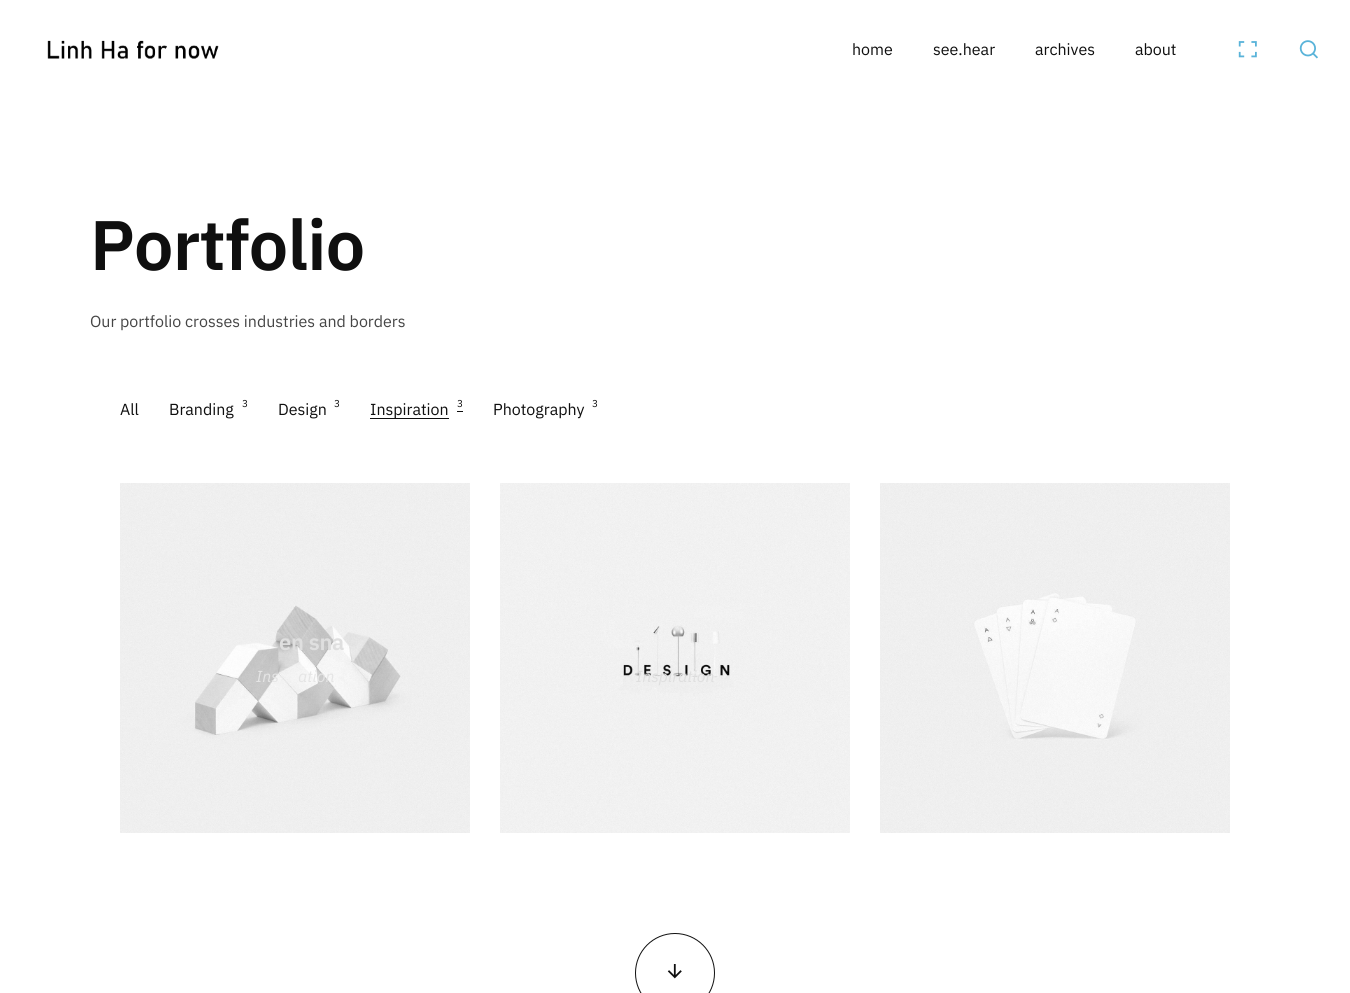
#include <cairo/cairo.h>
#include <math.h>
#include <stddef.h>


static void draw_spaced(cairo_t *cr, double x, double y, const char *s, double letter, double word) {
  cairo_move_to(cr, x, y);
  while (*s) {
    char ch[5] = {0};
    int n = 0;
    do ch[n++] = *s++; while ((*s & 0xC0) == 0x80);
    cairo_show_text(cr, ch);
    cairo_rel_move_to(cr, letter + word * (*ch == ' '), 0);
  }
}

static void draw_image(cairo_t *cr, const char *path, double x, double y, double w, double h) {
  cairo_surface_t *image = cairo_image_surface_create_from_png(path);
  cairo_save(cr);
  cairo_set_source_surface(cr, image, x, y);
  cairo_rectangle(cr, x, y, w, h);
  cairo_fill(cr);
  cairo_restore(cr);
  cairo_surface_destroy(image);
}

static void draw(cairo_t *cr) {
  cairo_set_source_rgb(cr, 1, 1, 1);
  cairo_paint(cr);
  draw_image(cr, "images/1.png", 47, 40, 172, 19);
  draw_image(cr, "images/2.png", 1238, 41, 19, 17);
  draw_image(cr, "images/3.png", 1299, 40, 19, 19);
  cairo_set_source_rgb(cr, 15 / 255.0, 15 / 255.0, 15 / 255.0);
  cairo_rectangle(cr, 370, 418, 79, 1);
  cairo_fill(cr);
  cairo_rectangle(cr, 457, 411, 6, 1);
  cairo_fill(cr);
  draw_image(cr, "images/4.png", 120, 483, 350, 350);
  draw_image(cr, "images/5.png", 500, 483, 350, 350);
  draw_image(cr, "images/6.png", 880, 483, 350, 350);
  cairo_arc(cr, 675, 973, 39.5, 0, 2 * M_PI);
  cairo_set_line_width(cr, 1);
  cairo_stroke(cr);
  draw_image(cr, "images/7.png", 667, 964, 15, 15);
  cairo_select_font_face(cr, "IBM Plex Sans", CAIRO_FONT_SLANT_NORMAL, CAIRO_FONT_WEIGHT_NORMAL);
  cairo_set_font_size(cr, 16);
  cairo_move_to(cr, 852, 55);
  cairo_show_text(cr, "home");
  cairo_move_to(cr, 933, 55);
  cairo_show_text(cr, "see.hear");
  cairo_move_to(cr, 1035, 55);
  cairo_show_text(cr, "archives");
  cairo_move_to(cr, 1135, 55);
  cairo_show_text(cr, "about");
  cairo_select_font_face(cr, "IBM Plex Sans SemiBold", CAIRO_FONT_SLANT_NORMAL, CAIRO_FONT_WEIGHT_NORMAL);
  cairo_set_font_size(cr, 70);
  draw_spaced(cr, 90, 270, "Portfolio", -0.75, 0);
  cairo_select_font_face(cr, "IBM Plex Sans", CAIRO_FONT_SLANT_NORMAL, CAIRO_FONT_WEIGHT_NORMAL);
  cairo_set_font_size(cr, 16);
  cairo_set_source_rgb(cr, 69 / 255.0, 69 / 255.0, 69 / 255.0);
  cairo_move_to(cr, 90, 327);
  cairo_show_text(cr, "Our portfolio crosses industries and borders");
  cairo_set_source_rgb(cr, 15 / 255.0, 15 / 255.0, 15 / 255.0);
  cairo_move_to(cr, 120, 415);
  cairo_show_text(cr, "All");
  cairo_move_to(cr, 169, 415);
  cairo_show_text(cr, "Branding");
  cairo_set_font_size(cr, 10);
  cairo_move_to(cr, 242, 407);
  cairo_show_text(cr, "3");
  cairo_set_font_size(cr, 16);
  cairo_move_to(cr, 278, 415);
  cairo_show_text(cr, "Design");
  cairo_set_font_size(cr, 10);
  cairo_move_to(cr, 334, 407);
  cairo_show_text(cr, "3");
  cairo_set_font_size(cr, 16);
  cairo_move_to(cr, 370, 415);
  cairo_show_text(cr, "Inspiration");
  cairo_set_font_size(cr, 10);
  cairo_move_to(cr, 457, 407);
  cairo_show_text(cr, "3");
  cairo_set_font_size(cr, 16);
  cairo_move_to(cr, 493, 415);
  cairo_show_text(cr, "Photography");
  cairo_set_font_size(cr, 10);
  cairo_move_to(cr, 592, 407);
  cairo_show_text(cr, "3");
  cairo_select_font_face(cr, "IBM Plex Sans SemiBold", CAIRO_FONT_SLANT_NORMAL, CAIRO_FONT_WEIGHT_NORMAL);
  cairo_set_font_size(cr, 22);
  cairo_set_source_rgb(cr, 223 / 255.0, 223 / 255.0, 223 / 255.0);
  draw_spaced(cr, 279, 650, "en sna", -0.25, 0);
  cairo_select_font_face(cr, "IBM Plex Sans", CAIRO_FONT_SLANT_ITALIC, CAIRO_FONT_WEIGHT_NORMAL);
  cairo_set_font_size(cr, 16);
  cairo_set_source_rgb(cr, 229 / 255.0, 229 / 255.0, 229 / 255.0);
  cairo_move_to(cr, 256, 682);
  cairo_show_text(cr, "Ins");
  cairo_move_to(cr, 298, 682);
  cairo_show_text(cr, "ation");
  cairo_set_source_rgb(cr, 223 / 255.0, 223 / 255.0, 223 / 255.0);
  cairo_move_to(cr, 636, 682);
  cairo_show_text(cr, "Inspiration");
}

int main(void) {
  cairo_surface_t *surface = cairo_image_surface_create(CAIRO_FORMAT_RGB24, 1350, 993);
  cairo_t *cr = cairo_create(surface);
  cairo_font_options_t *options = cairo_font_options_create();
  cairo_font_options_set_hint_metrics(options, CAIRO_HINT_METRICS_OFF);
  cairo_font_options_set_hint_style(options, CAIRO_HINT_STYLE_NONE);
  cairo_set_font_options(cr, options);
  cairo_set_miter_limit(cr, 4);
  draw(cr);
  cairo_surface_write_to_png(surface, "out.png");
  cairo_font_options_destroy(options);
  cairo_destroy(cr);
  cairo_surface_destroy(surface);
  return 0;
}
